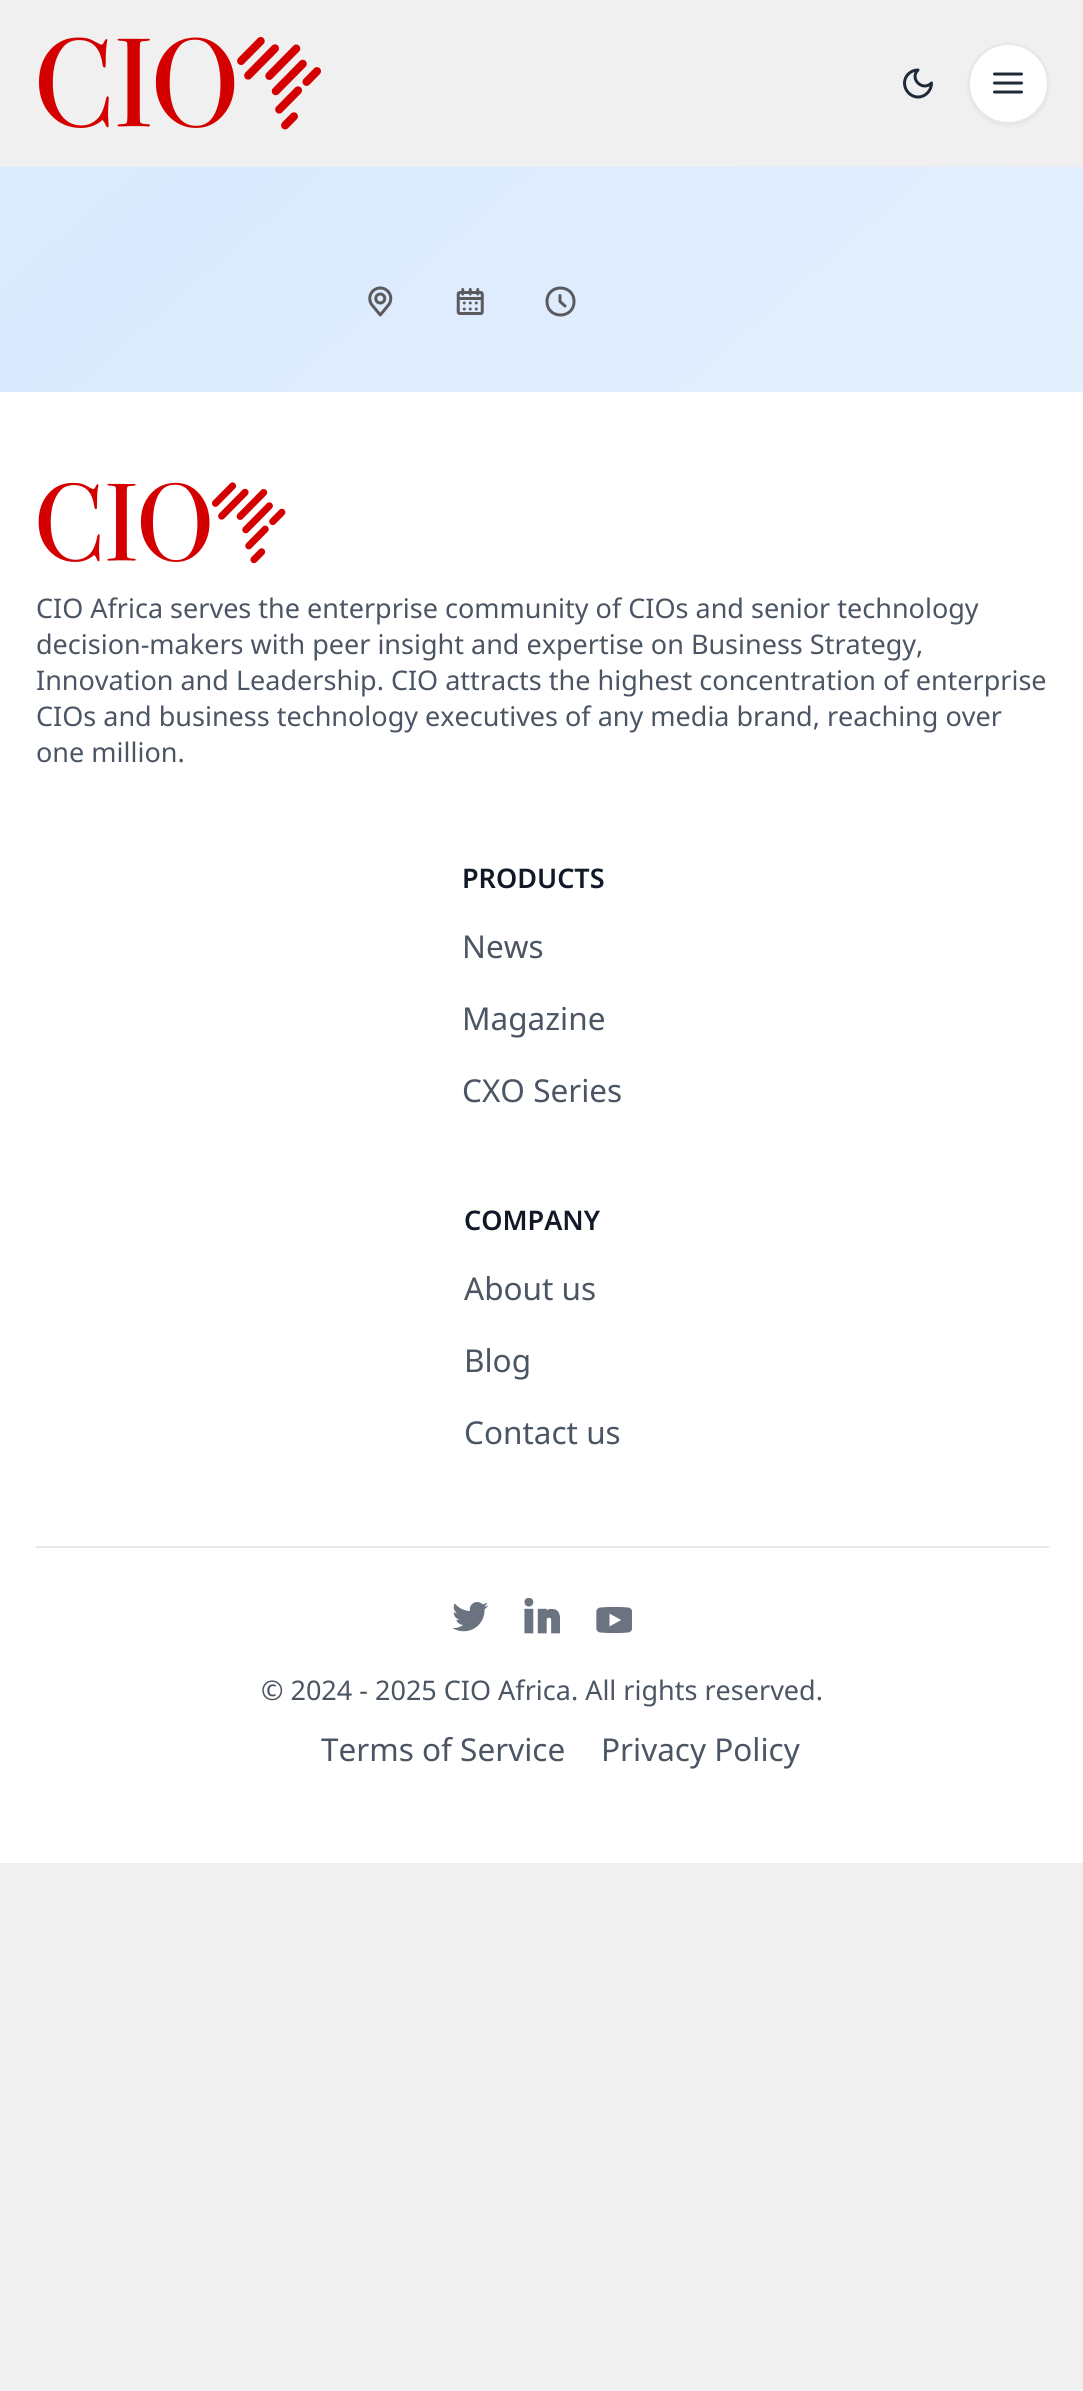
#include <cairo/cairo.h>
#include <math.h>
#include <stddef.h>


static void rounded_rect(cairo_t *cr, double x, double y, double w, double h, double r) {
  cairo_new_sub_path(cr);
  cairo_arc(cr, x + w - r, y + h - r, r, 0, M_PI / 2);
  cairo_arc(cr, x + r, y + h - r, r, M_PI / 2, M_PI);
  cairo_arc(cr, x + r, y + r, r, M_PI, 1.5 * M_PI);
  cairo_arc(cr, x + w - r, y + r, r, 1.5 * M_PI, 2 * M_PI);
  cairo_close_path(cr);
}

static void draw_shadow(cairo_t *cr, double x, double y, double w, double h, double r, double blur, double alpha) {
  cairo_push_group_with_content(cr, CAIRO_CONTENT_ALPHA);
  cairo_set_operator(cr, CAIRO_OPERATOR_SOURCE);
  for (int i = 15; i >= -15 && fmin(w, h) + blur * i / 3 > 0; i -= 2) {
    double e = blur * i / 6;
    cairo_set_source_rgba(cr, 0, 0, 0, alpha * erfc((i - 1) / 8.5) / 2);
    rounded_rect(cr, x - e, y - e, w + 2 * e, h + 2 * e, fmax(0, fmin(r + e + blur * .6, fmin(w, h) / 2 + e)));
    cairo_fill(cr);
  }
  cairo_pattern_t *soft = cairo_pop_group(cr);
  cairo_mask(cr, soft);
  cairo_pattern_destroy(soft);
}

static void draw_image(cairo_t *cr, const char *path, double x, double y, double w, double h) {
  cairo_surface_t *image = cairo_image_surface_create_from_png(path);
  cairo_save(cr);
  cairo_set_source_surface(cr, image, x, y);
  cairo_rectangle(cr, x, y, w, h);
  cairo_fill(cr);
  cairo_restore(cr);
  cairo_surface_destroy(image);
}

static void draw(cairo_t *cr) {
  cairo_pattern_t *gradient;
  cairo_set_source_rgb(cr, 240 / 255.0, 240 / 255.0, 240 / 255.0);
  cairo_paint(cr);
  draw_image(cr, "images/1.png", 39, 37, 282, 93);
  cairo_new_path(cr);
  cairo_move_to(cr, 918, 70);
  cairo_curve_to(cr, 909, 78.5, 922.5, 92, 931.5, 83);
  cairo_curve_to(cr, 931.5, 90.5, 925.5, 97, 918, 97);
  cairo_curve_to(cr, 910.5, 97, 904.5, 90.5, 904.5, 83);
  cairo_curve_to(cr, 904.5, 76, 910.5, 70, 918, 70);
  cairo_close_path(cr);
  cairo_set_source_rgb(cr, 31 / 255.0, 41 / 255.0, 55 / 255.0);
  cairo_set_line_width(cr, 3);
  cairo_set_line_cap(cr, CAIRO_LINE_CAP_ROUND);
  cairo_set_line_join(cr, CAIRO_LINE_JOIN_ROUND);
  cairo_stroke(cr);
  cairo_set_source_rgb(cr, 0, 0, 0);
  draw_shadow(cr, 968, 45, 81, 81, 40.5, 2, 0.05);
  cairo_set_source_rgb(cr, 1, 1, 1);
  cairo_arc(cr, 1008.5, 83.5, 39.5, 0, 2 * M_PI);
  cairo_fill_preserve(cr);
  cairo_set_source_rgb(cr, 229 / 255.0, 231 / 255.0, 235 / 255.0);
  cairo_set_line_width(cr, 2);
  cairo_set_line_cap(cr, CAIRO_LINE_CAP_BUTT);
  cairo_set_line_join(cr, CAIRO_LINE_JOIN_MITER);
  cairo_stroke(cr);
  cairo_new_path(cr);
  cairo_move_to(cr, 994.5, 74);
  cairo_line_to(cr, 1021.5, 74);
  cairo_move_to(cr, 994.5, 83);
  cairo_line_to(cr, 1021.5, 83);
  cairo_move_to(cr, 994.5, 92);
  cairo_line_to(cr, 1021.5, 92);
  cairo_set_source_rgb(cr, 31 / 255.0, 41 / 255.0, 55 / 255.0);
  cairo_set_line_width(cr, 3);
  cairo_set_line_cap(cr, CAIRO_LINE_CAP_ROUND);
  cairo_set_line_join(cr, CAIRO_LINE_JOIN_ROUND);
  cairo_stroke(cr);
  cairo_save(cr);
  cairo_rectangle(cr, 0, 167, 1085, 225);
  cairo_clip(cr);
  gradient = cairo_pattern_create_linear(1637, 1032, -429, -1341);
  cairo_pattern_add_color_stop_rgba(gradient, 0, 239 / 255.0, 246 / 255.0, 1, 1);
  cairo_pattern_add_color_stop_rgba(gradient, 0.5, 219 / 255.0, 234 / 255.0, 254 / 255.0, 1);
  cairo_pattern_add_color_stop_rgba(gradient, 1, 239 / 255.0, 246 / 255.0, 1, 1);
  cairo_set_source(cr, gradient);
  cairo_pattern_destroy(gradient);
  cairo_new_path(cr);
  cairo_move_to(cr, -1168, -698);
  cairo_line_to(cr, 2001, -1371);
  cairo_line_to(cr, 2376, 389);
  cairo_line_to(cr, -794, 1063);
  cairo_close_path(cr);
  cairo_fill(cr);
  cairo_restore(cr);
  draw_image(cr, "images/2.png", 368, 286, 25, 31);
  draw_image(cr, "images/3.png", 456, 288, 28, 27);
  cairo_new_path(cr);
  cairo_move_to(cr, 560, 295.5);
  cairo_line_to(cr, 560, 301.5);
  cairo_line_to(cr, 565, 306);
  cairo_move_to(cr, 574, 301.5);
  cairo_curve_to(cr, 574, 319.5, 547, 319.5, 547, 301.5);
  cairo_curve_to(cr, 547, 283.5, 574, 283.5, 574, 301.5);
  cairo_close_path(cr);
  cairo_set_source_rgb(cr, 91 / 255.0, 90 / 255.0, 95 / 255.0);
  cairo_stroke(cr);
  cairo_set_source_rgb(cr, 1, 1, 1);
  cairo_rectangle(cr, 0, 392, 1083, 1471);
  cairo_fill(cr);
  draw_image(cr, "images/4.png", 38, 482, 248, 82);
  cairo_set_source_rgb(cr, 229 / 255.0, 231 / 255.0, 235 / 255.0);
  cairo_rectangle(cr, 36, 1546, 1013, 2);
  cairo_fill(cr);
  draw_image(cr, "images/5.png", 452, 1602, 36, 30);
  draw_image(cr, "images/6.png", 524, 1598, 36, 36);
  draw_image(cr, "images/7.png", 596, 1606, 36, 28);
  cairo_select_font_face(cr, "Noto Sans", CAIRO_FONT_SLANT_NORMAL, CAIRO_FONT_WEIGHT_NORMAL);
  cairo_set_font_size(cr, 27);
  cairo_set_source_rgb(cr, 75 / 255.0, 85 / 255.0, 99 / 255.0);
  cairo_move_to(cr, 36, 618);
  cairo_show_text(cr, "CIO Africa serves the enterprise community of CIOs and senior technology");
  cairo_move_to(cr, 36, 654);
  cairo_show_text(cr, "decision-makers with peer insight and expertise on Business Strategy,");
  cairo_move_to(cr, 36, 690);
  cairo_show_text(cr, "Innovation and Leadership. CIO attracts the highest concentration of enterprise");
  cairo_move_to(cr, 36, 726);
  cairo_show_text(cr, "CIOs and business technology executives of any media brand, reaching over");
  cairo_move_to(cr, 36, 762);
  cairo_show_text(cr, "one million.");
  cairo_select_font_face(cr, "Noto Sans SemiBold", CAIRO_FONT_SLANT_NORMAL, CAIRO_FONT_WEIGHT_NORMAL);
  cairo_set_source_rgb(cr, 17 / 255.0, 24 / 255.0, 39 / 255.0);
  cairo_move_to(cr, 462, 888);
  cairo_show_text(cr, "PRODUCTS");
  cairo_select_font_face(cr, "Noto Sans", CAIRO_FONT_SLANT_NORMAL, CAIRO_FONT_WEIGHT_NORMAL);
  cairo_set_font_size(cr, 31.5);
  cairo_set_source_rgb(cr, 75 / 255.0, 85 / 255.0, 99 / 255.0);
  cairo_move_to(cr, 462, 958);
  cairo_show_text(cr, "News");
  cairo_move_to(cr, 462, 1030);
  cairo_show_text(cr, "Magazine");
  cairo_move_to(cr, 462, 1102);
  cairo_show_text(cr, "CXO Series");
  cairo_select_font_face(cr, "Noto Sans SemiBold", CAIRO_FONT_SLANT_NORMAL, CAIRO_FONT_WEIGHT_NORMAL);
  cairo_set_font_size(cr, 27);
  cairo_set_source_rgb(cr, 17 / 255.0, 24 / 255.0, 39 / 255.0);
  cairo_move_to(cr, 464, 1230);
  cairo_show_text(cr, "COMPANY");
  cairo_select_font_face(cr, "Noto Sans", CAIRO_FONT_SLANT_NORMAL, CAIRO_FONT_WEIGHT_NORMAL);
  cairo_set_font_size(cr, 31.5);
  cairo_set_source_rgb(cr, 75 / 255.0, 85 / 255.0, 99 / 255.0);
  cairo_move_to(cr, 464, 1300);
  cairo_show_text(cr, "About us");
  cairo_move_to(cr, 464, 1372);
  cairo_show_text(cr, "Blog");
  cairo_move_to(cr, 464, 1444);
  cairo_show_text(cr, "Contact us");
  cairo_set_font_size(cr, 27);
  cairo_move_to(cr, 261, 1700);
  cairo_show_text(cr, "© 2024 - 2025 CIO Africa. All rights reserved.");
  cairo_set_font_size(cr, 31.5);
  cairo_move_to(cr, 321, 1761);
  cairo_show_text(cr, "Terms of Service");
  cairo_move_to(cr, 601, 1761);
  cairo_show_text(cr, "Privacy Policy");
}

int main(void) {
  cairo_surface_t *surface = cairo_image_surface_create(CAIRO_FORMAT_RGB24, 1083, 2391);
  cairo_t *cr = cairo_create(surface);
  cairo_font_options_t *options = cairo_font_options_create();
  cairo_font_options_set_hint_metrics(options, CAIRO_HINT_METRICS_OFF);
  cairo_font_options_set_hint_style(options, CAIRO_HINT_STYLE_NONE);
  cairo_set_font_options(cr, options);
  cairo_set_miter_limit(cr, 4);
  draw(cr);
  cairo_surface_write_to_png(surface, "out.png");
  cairo_font_options_destroy(options);
  cairo_destroy(cr);
  cairo_surface_destroy(surface);
  return 0;
}
